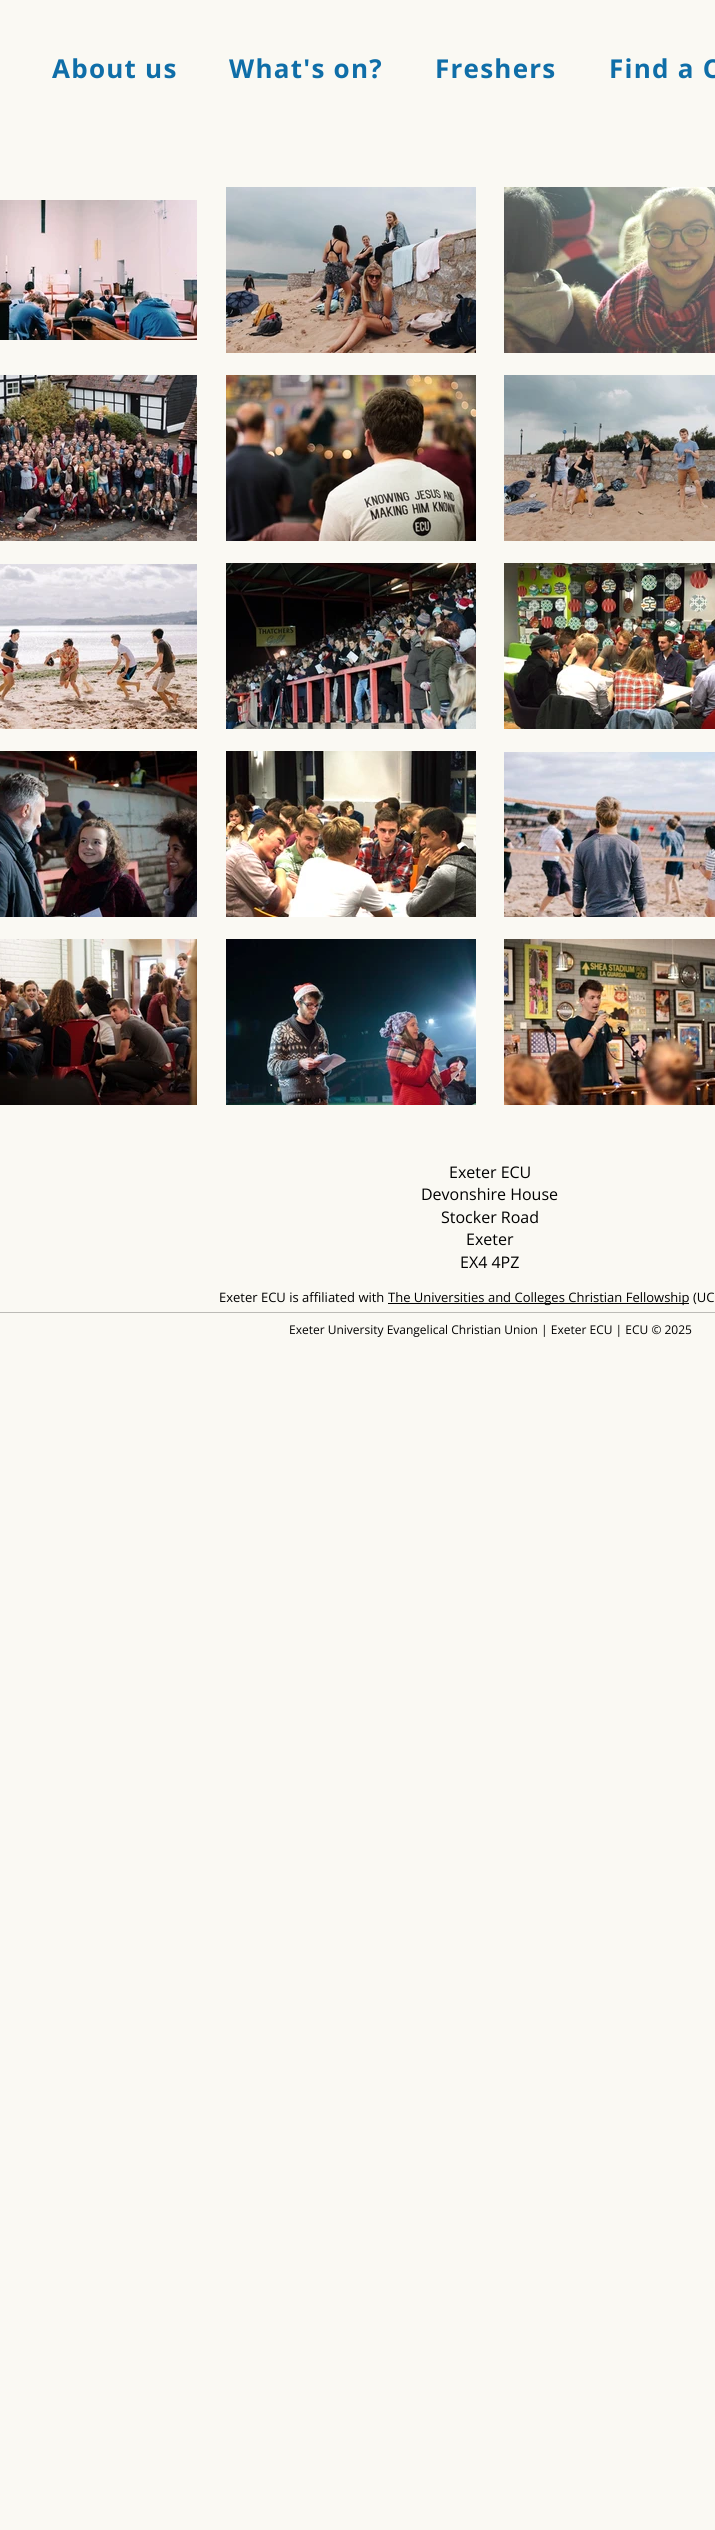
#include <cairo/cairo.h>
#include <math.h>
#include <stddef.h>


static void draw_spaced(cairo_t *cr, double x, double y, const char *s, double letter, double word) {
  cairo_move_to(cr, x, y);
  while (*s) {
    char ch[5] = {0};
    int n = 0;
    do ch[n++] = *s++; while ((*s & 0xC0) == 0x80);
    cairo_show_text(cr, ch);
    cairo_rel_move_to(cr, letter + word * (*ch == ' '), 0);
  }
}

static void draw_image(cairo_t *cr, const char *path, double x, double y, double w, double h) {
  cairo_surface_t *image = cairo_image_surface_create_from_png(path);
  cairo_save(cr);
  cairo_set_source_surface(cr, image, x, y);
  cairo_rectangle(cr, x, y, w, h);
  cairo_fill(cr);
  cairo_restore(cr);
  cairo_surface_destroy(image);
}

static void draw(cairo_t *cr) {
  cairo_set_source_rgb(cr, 250 / 255.0, 249 / 255.0, 243 / 255.0);
  cairo_paint(cr);
  draw_image(cr, "images/1.png", 0, 200, 197, 140);
  draw_image(cr, "images/2.png", 226, 187, 250, 166);
  draw_image(cr, "images/3.png", 504, 187, 211, 166);
  draw_image(cr, "images/4.png", 0, 375, 197, 166);
  draw_image(cr, "images/5.png", 226, 375, 250, 166);
  draw_image(cr, "images/6.png", 504, 375, 211, 166);
  draw_image(cr, "images/7.png", 0, 564, 197, 165);
  draw_image(cr, "images/8.png", 226, 563, 250, 166);
  draw_image(cr, "images/9.png", 504, 563, 211, 166);
  draw_image(cr, "images/10.png", 0, 751, 197, 166);
  draw_image(cr, "images/11.png", 226, 751, 250, 166);
  draw_image(cr, "images/12.png", 504, 752, 211, 165);
  draw_image(cr, "images/13.png", 0, 939, 197, 166);
  draw_image(cr, "images/14.png", 226, 939, 250, 166);
  draw_image(cr, "images/15.png", 504, 939, 211, 166);
  cairo_set_source_rgb(cr, 0, 0, 0);
  cairo_rectangle(cr, 388, 1303, 301, 1);
  cairo_fill(cr);
  cairo_set_source_rgb(cr, 188 / 255.0, 187 / 255.0, 182 / 255.0);
  cairo_rectangle(cr, 0, 1312, 715, 1);
  cairo_fill(cr);
  cairo_select_font_face(cr, "Open Sans", CAIRO_FONT_SLANT_NORMAL, CAIRO_FONT_WEIGHT_BOLD);
  cairo_set_font_size(cr, 26);
  cairo_set_source_rgb(cr, 15 / 255.0, 110 / 255.0, 168 / 255.0);
  draw_spaced(cr, 52, 78, "About us", 1.25, 0);
  draw_spaced(cr, 229, 78, "What's on?", 1.25, 0);
  draw_spaced(cr, 435, 78, "Freshers", 1.25, 0);
  draw_spaced(cr, 609, 78, "Find a C", 1.25, 0);
  cairo_select_font_face(cr, "Open Sans", CAIRO_FONT_SLANT_NORMAL, CAIRO_FONT_WEIGHT_NORMAL);
  cairo_set_font_size(cr, 16);
  cairo_set_source_rgb(cr, 0, 0, 0);
  cairo_move_to(cr, 449, 1178);
  cairo_show_text(cr, "Exeter ECU");
  cairo_move_to(cr, 421, 1200);
  cairo_show_text(cr, "Devonshire House");
  cairo_move_to(cr, 441, 1223);
  cairo_show_text(cr, "Stocker Road");
  cairo_move_to(cr, 466, 1245);
  cairo_show_text(cr, "Exeter");
  cairo_move_to(cr, 460, 1268);
  cairo_show_text(cr, "EX4 4PZ");
  cairo_set_font_size(cr, 13);
  cairo_move_to(cr, 219, 1302);
  cairo_show_text(cr, "Exeter ECU is affiliated with");
  cairo_move_to(cr, 388, 1302);
  cairo_show_text(cr, "The Universities and Colleges Christian Fellowship (UC");
  cairo_set_font_size(cr, 12);
  cairo_move_to(cr, 289, 1334);
  cairo_show_text(cr, "Exeter University Evangelical Christian Union | Exeter ECU | ECU © 2025");
}

int main(void) {
  cairo_surface_t *surface = cairo_image_surface_create(CAIRO_FORMAT_RGB24, 715, 2530);
  cairo_t *cr = cairo_create(surface);
  cairo_font_options_t *options = cairo_font_options_create();
  cairo_font_options_set_hint_metrics(options, CAIRO_HINT_METRICS_OFF);
  cairo_font_options_set_hint_style(options, CAIRO_HINT_STYLE_NONE);
  cairo_set_font_options(cr, options);
  cairo_set_miter_limit(cr, 4);
  draw(cr);
  cairo_surface_write_to_png(surface, "out.png");
  cairo_font_options_destroy(options);
  cairo_destroy(cr);
  cairo_surface_destroy(surface);
  return 0;
}
